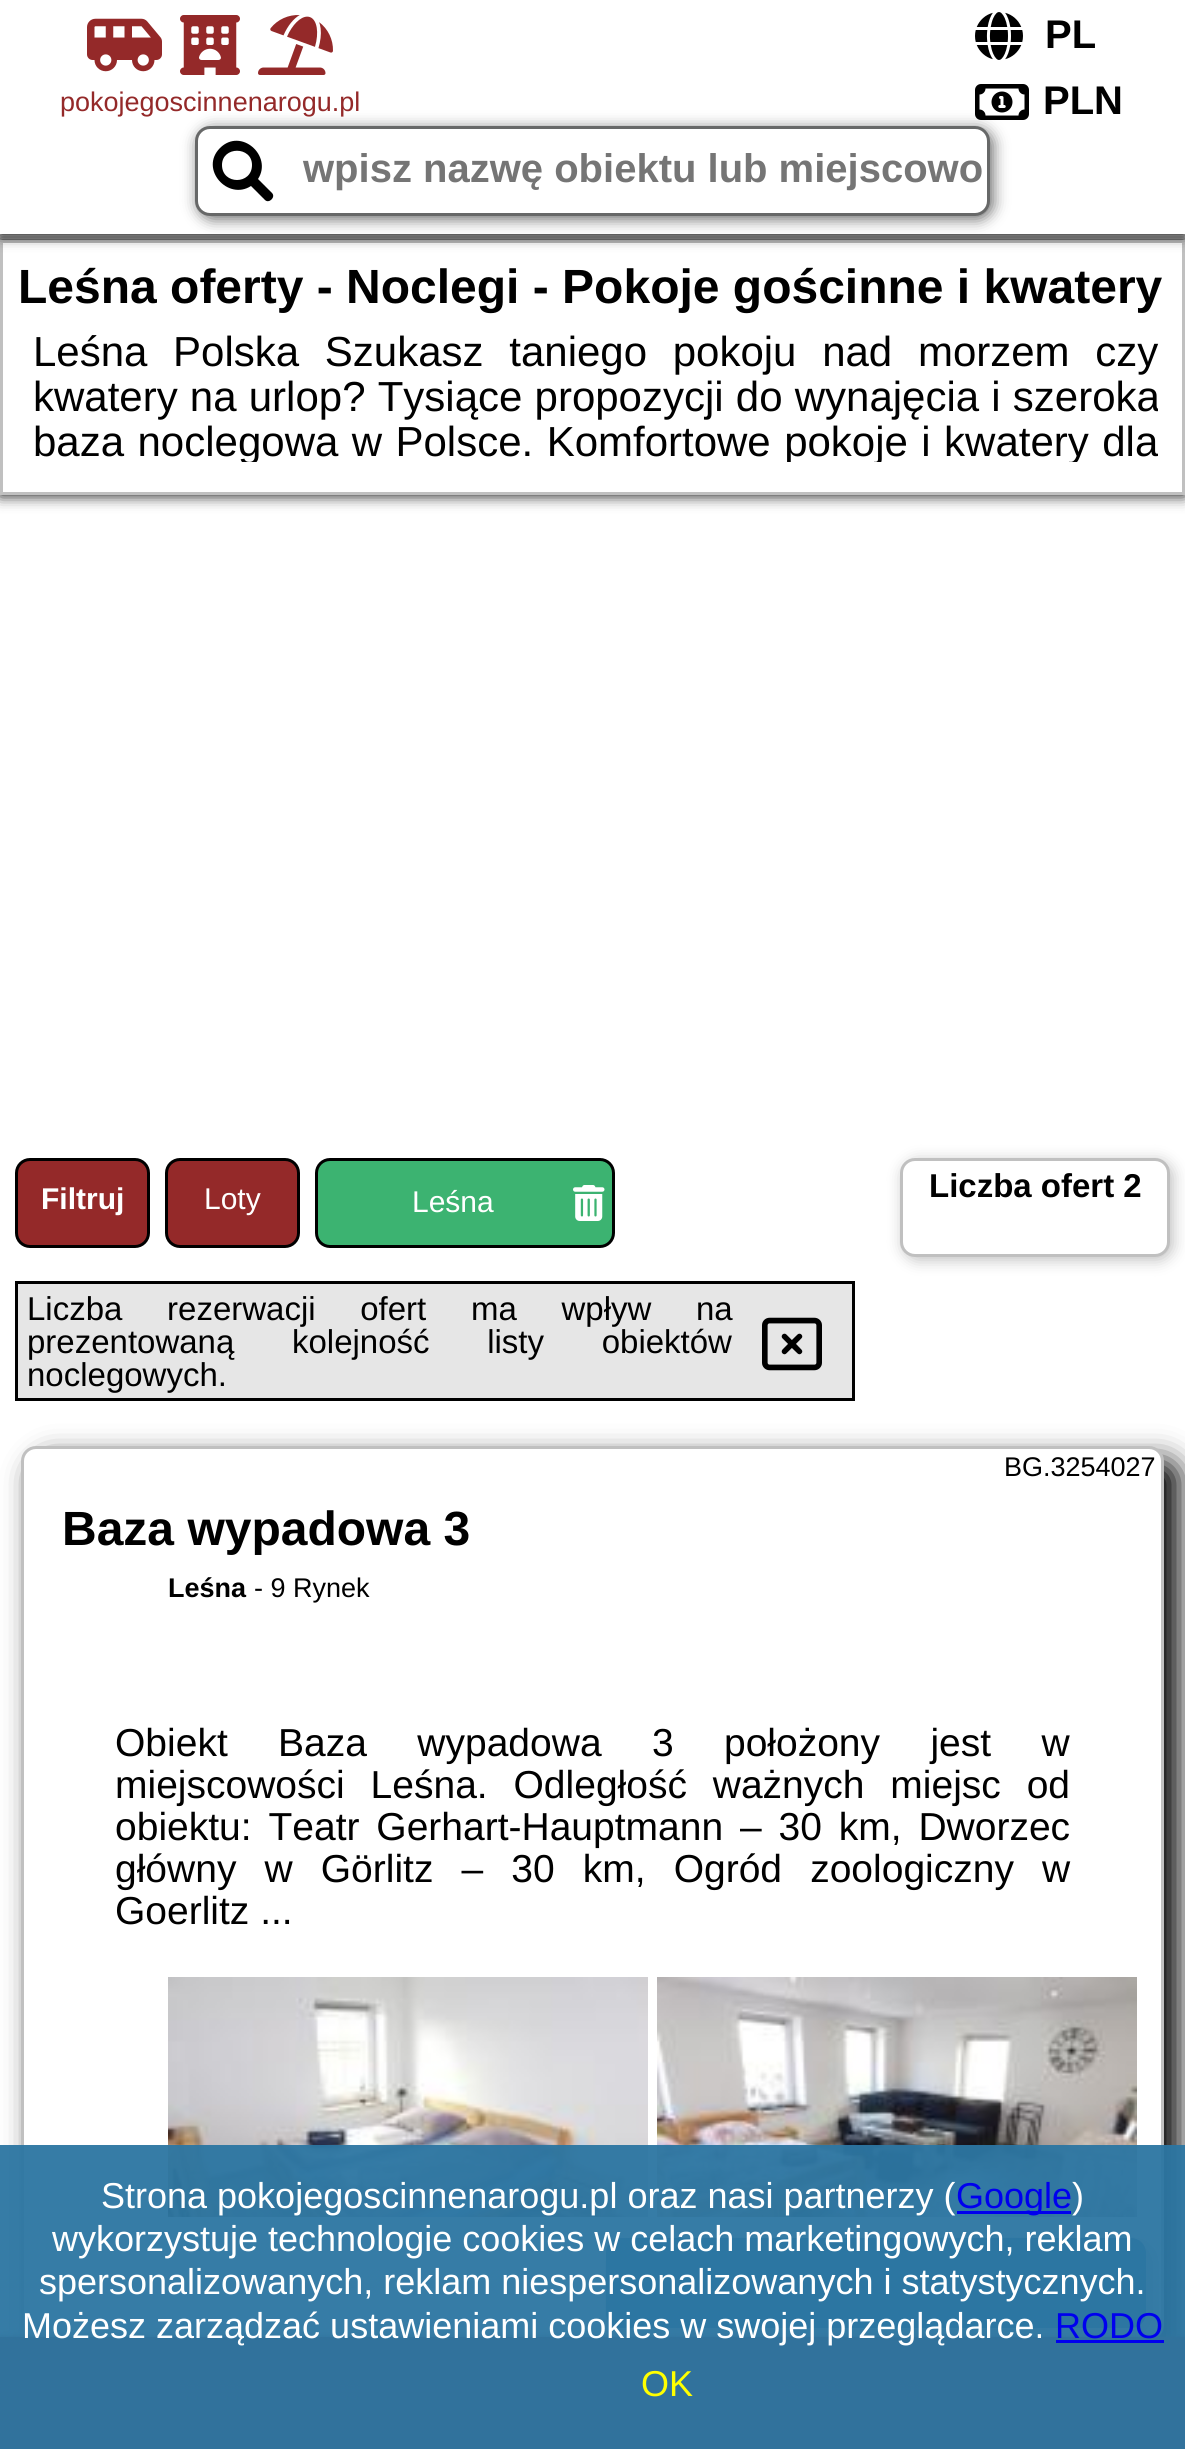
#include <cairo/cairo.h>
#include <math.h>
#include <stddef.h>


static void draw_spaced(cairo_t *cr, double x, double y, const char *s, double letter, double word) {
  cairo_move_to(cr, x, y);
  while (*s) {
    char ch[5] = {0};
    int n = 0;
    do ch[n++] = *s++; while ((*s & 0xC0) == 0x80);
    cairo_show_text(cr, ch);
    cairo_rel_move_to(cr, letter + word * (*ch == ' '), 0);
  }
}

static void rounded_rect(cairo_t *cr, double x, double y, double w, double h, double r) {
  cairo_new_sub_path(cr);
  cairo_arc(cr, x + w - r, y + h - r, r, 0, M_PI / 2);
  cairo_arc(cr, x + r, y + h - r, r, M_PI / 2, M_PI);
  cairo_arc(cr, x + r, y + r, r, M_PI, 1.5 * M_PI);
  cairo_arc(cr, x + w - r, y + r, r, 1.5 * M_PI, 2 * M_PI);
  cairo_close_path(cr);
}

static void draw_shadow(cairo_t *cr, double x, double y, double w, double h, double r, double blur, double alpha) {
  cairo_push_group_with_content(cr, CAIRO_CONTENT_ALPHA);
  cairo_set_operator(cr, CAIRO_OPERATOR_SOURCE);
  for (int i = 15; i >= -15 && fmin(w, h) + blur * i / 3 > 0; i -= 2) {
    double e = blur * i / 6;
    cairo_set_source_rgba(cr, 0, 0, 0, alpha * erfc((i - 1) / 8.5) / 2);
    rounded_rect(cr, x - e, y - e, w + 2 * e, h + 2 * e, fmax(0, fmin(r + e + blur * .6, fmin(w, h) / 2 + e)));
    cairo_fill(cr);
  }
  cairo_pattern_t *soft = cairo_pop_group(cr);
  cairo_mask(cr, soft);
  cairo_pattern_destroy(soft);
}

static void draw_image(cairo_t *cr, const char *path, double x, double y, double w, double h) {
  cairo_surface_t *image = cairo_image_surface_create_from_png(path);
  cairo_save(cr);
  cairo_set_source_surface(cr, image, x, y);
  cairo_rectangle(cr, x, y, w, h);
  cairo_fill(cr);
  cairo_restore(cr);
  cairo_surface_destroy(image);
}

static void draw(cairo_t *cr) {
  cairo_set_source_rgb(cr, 1, 1, 1);
  cairo_paint(cr);
  cairo_save(cr);
  cairo_set_fill_rule(cr, CAIRO_FILL_RULE_EVEN_ODD);
  cairo_new_path(cr);
  cairo_move_to(cr, 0, 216);
  cairo_line_to(cr, 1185, 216);
  cairo_line_to(cr, 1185, 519);
  cairo_line_to(cr, 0, 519);
  cairo_close_path(cr);
  cairo_move_to(cr, 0, 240);
  cairo_line_to(cr, 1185, 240);
  cairo_line_to(cr, 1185, 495);
  cairo_line_to(cr, 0, 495);
  cairo_close_path(cr);
  cairo_clip(cr);
  cairo_set_source_rgb(cr, 0, 0, 0);
  draw_shadow(cr, 0, 240, 1185, 255, 0, 7.5, 1);
  cairo_restore(cr);
  cairo_rectangle(cr, 1.5, 241.5, 1182, 252);
  cairo_set_source_rgb(cr, 192 / 255.0, 192 / 255.0, 192 / 255.0);
  cairo_set_line_width(cr, 3);
  cairo_stroke(cr);
  cairo_set_source_rgb(cr, 0, 0, 0);
  draw_shadow(cr, 0, 0, 1185, 234, 0, 7.5, 1);
  cairo_set_source_rgb(cr, 1, 1, 1);
  cairo_rectangle(cr, 0, 0, 1185, 234);
  cairo_fill(cr);
  draw_image(cr, "images/1.png", 975, 12, 48, 48);
  draw_image(cr, "images/2.png", 87, 18, 75, 54);
  draw_image(cr, "images/3.png", 180, 15, 60, 60);
  draw_image(cr, "images/4.png", 258, 15, 75, 60);
  cairo_set_source_rgb(cr, 103 / 255.0, 104 / 255.0, 104 / 255.0);
  draw_shadow(cr, 198, 129, 795, 90, 15, 7.5, 1);
  draw_image(cr, "images/5.png", 975, 84, 54, 36);
  cairo_set_source_rgb(cr, 1, 1, 1);
  rounded_rect(cr, 196.5, 127.5, 792, 87, 13.5);
  cairo_fill_preserve(cr);
  cairo_set_source_rgb(cr, 103 / 255.0, 104 / 255.0, 104 / 255.0);
  cairo_stroke(cr);
  cairo_set_source_rgb(cr, 0, 0, 0);
  cairo_new_path(cr);
  cairo_move_to(cr, 272, 193);
  cairo_line_to(cr, 258, 179);
  cairo_curve_to(cr, 273, 156, 241, 127, 220, 148);
  cairo_curve_to(cr, 199, 169, 228, 201, 251, 186);
  cairo_line_to(cr, 265, 200);
  cairo_curve_to(cr, 269, 204, 276, 197, 272, 193);
  cairo_close_path(cr);
  cairo_move_to(cr, 222, 165);
  cairo_curve_to(cr, 222, 146, 252, 146, 252, 165);
  cairo_curve_to(cr, 252, 185, 222, 185, 222, 165);
  cairo_close_path(cr);
  cairo_fill(cr);
  cairo_set_source_rgb(cr, 148 / 255.0, 41 / 255.0, 41 / 255.0);
  rounded_rect(cr, 16.5, 1159.5, 132, 87, 13.5);
  cairo_fill_preserve(cr);
  cairo_set_source_rgb(cr, 0, 0, 0);
  cairo_stroke(cr);
  cairo_set_source_rgb(cr, 148 / 255.0, 41 / 255.0, 41 / 255.0);
  rounded_rect(cr, 166.5, 1159.5, 132, 87, 13.5);
  cairo_fill_preserve(cr);
  cairo_set_source_rgb(cr, 0, 0, 0);
  cairo_stroke(cr);
  cairo_set_source_rgb(cr, 60 / 255.0, 179 / 255.0, 113 / 255.0);
  rounded_rect(cr, 316.5, 1159.5, 297, 87, 13.5);
  cairo_fill_preserve(cr);
  cairo_set_source_rgb(cr, 0, 0, 0);
  cairo_stroke(cr);
  draw_image(cr, "images/6.png", 573, 1185, 32, 36);
  cairo_set_source_rgb(cr, 192 / 255.0, 192 / 255.0, 192 / 255.0);
  draw_shadow(cr, 903, 1161, 270, 99, 15, 7.5, 1);
  cairo_set_source_rgb(cr, 1, 1, 1);
  rounded_rect(cr, 901.5, 1159.5, 267, 96, 13.5);
  cairo_fill_preserve(cr);
  cairo_set_source_rgb(cr, 192 / 255.0, 192 / 255.0, 192 / 255.0);
  cairo_stroke(cr);
  cairo_set_source_rgb(cr, 230 / 255.0, 230 / 255.0, 230 / 255.0);
  cairo_rectangle(cr, 16.5, 1282.5, 837, 117);
  cairo_fill_preserve(cr);
  cairo_set_source_rgb(cr, 0, 0, 0);
  cairo_stroke(cr);
  draw_image(cr, "images/7.png", 762, 1317, 60, 54);
  cairo_set_source_rgb(cr, 0, 0, 0);
  draw_shadow(cr, 36, 1461, 1143, 894, 15, 15, 1);
  cairo_set_source_rgb(cr, 1, 1, 1);
  rounded_rect(cr, 22.5, 1447.5, 1140, 891, 13.5);
  cairo_fill_preserve(cr);
  cairo_set_source_rgb(cr, 192 / 255.0, 192 / 255.0, 192 / 255.0);
  cairo_stroke(cr);
  draw_image(cr, "images/8.png", 168, 1977, 480, 240);
  draw_image(cr, "images/9.png", 657, 1977, 480, 240);
  cairo_save(cr);
  rounded_rect(cr, 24, 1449, 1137, 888, 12);
  cairo_clip(cr);
  cairo_set_source_rgb(cr, 192 / 255.0, 192 / 255.0, 192 / 255.0);
  draw_shadow(cr, 612, 2244, 540, 90, 15, 7.5, 1);
  cairo_restore(cr);
  cairo_set_source_rgb(cr, 45 / 255.0, 118 / 255.0, 162 / 255.0);
  rounded_rect(cr, 606, 2238, 540, 90, 15);
  cairo_fill(cr);
  cairo_set_source_rgb(cr, 148 / 255.0, 41 / 255.0, 41 / 255.0);
  draw_shadow(cr, 0, 2337, 1185, 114, 0, 3, 1);
  cairo_set_source_rgb(cr, 148 / 255.0, 41 / 255.0, 41 / 255.0);
  cairo_rectangle(cr, 0, 2337, 1185, 112);
  cairo_fill(cr);
  cairo_set_source_rgba(cr, 45 / 255.0, 118 / 255.0, 162 / 255.0, 0.95);
  cairo_rectangle(cr, 0, 2145, 1185, 304);
  cairo_fill(cr);
  cairo_set_source_rgb(cr, 0, 0, 238 / 255.0);
  cairo_rectangle(cr, 957, 2211, 114, 3);
  cairo_fill(cr);
  cairo_rectangle(cr, 1056, 2340, 108, 3);
  cairo_fill(cr);
  cairo_select_font_face(cr, "Liberation Sans", CAIRO_FONT_SLANT_NORMAL, CAIRO_FONT_WEIGHT_BOLD);
  cairo_set_font_size(cr, 40);
  cairo_set_source_rgb(cr, 0, 0, 0);
  cairo_move_to(cr, 1045, 48);
  cairo_show_text(cr, "PL");
  cairo_select_font_face(cr, "Liberation Sans", CAIRO_FONT_SLANT_NORMAL, CAIRO_FONT_WEIGHT_NORMAL);
  cairo_set_font_size(cr, 27);
  cairo_set_source_rgb(cr, 148 / 255.0, 41 / 255.0, 41 / 255.0);
  cairo_move_to(cr, 60, 111);
  cairo_show_text(cr, "pokojegoscinnenarogu.pl");
  cairo_select_font_face(cr, "Liberation Sans", CAIRO_FONT_SLANT_NORMAL, CAIRO_FONT_WEIGHT_BOLD);
  cairo_set_font_size(cr, 40);
  cairo_set_source_rgb(cr, 0, 0, 0);
  cairo_move_to(cr, 1043, 114);
  cairo_show_text(cr, "PLN");
  cairo_set_source_rgb(cr, 117 / 255.0, 117 / 255.0, 117 / 255.0);
  cairo_move_to(cr, 303, 182);
  cairo_show_text(cr, "wpisz nazwę obiektu lub miejscowo");
  cairo_set_font_size(cr, 48);
  cairo_set_source_rgb(cr, 0, 0, 0);
  cairo_move_to(cr, 18, 303);
  cairo_show_text(cr, "Leśna oferty - Noclegi - Pokoje gościnne i kwatery");
  cairo_save(cr);
  cairo_rectangle(cr, 33, 330, 1125, 132);
  cairo_clip(cr);
  cairo_select_font_face(cr, "Liberation Sans", CAIRO_FONT_SLANT_NORMAL, CAIRO_FONT_WEIGHT_NORMAL);
  cairo_set_font_size(cr, 42);
  draw_spaced(cr, 33, 366, "Leśna Polska Szukasz taniego pokoju nad morzem czy", 0, 14);
  draw_spaced(cr, 33, 411, "kwatery na urlop? Tysiące propozycji do wynajęcia i szeroka", 0, 0.5);
  draw_spaced(cr, 33, 456, "baza noclegowa w Polsce. Komfortowe pokoje i kwatery dla", 0, 1.75);
  cairo_restore(cr);
  cairo_set_font_size(cr, 30);
  cairo_set_source_rgb(cr, 1, 1, 1);
  cairo_move_to(cr, 41, 1209);
  cairo_show_text(cr, "Filtruj");
  cairo_select_font_face(cr, "Liberation Sans", CAIRO_FONT_SLANT_NORMAL, CAIRO_FONT_WEIGHT_NORMAL);
  cairo_move_to(cr, 204, 1209);
  cairo_show_text(cr, "Loty");
  cairo_move_to(cr, 412, 1212);
  cairo_show_text(cr, "Leśna");
  cairo_select_font_face(cr, "Liberation Sans", CAIRO_FONT_SLANT_NORMAL, CAIRO_FONT_WEIGHT_BOLD);
  cairo_set_font_size(cr, 33);
  cairo_set_source_rgb(cr, 0, 0, 0);
  cairo_move_to(cr, 929, 1197);
  cairo_show_text(cr, "Liczba ofert 2");
  cairo_select_font_face(cr, "Liberation Sans", CAIRO_FONT_SLANT_NORMAL, CAIRO_FONT_WEIGHT_NORMAL);
  draw_spaced(cr, 27, 1320, "Liczba rezerwacji ofert ma wpływ na", 0, 35.5);
  draw_spaced(cr, 27, 1353, "prezentowaną kolejność listy obiektów", 0, 48.5);
  cairo_move_to(cr, 27, 1386);
  cairo_show_text(cr, "noclegowych.");
  cairo_set_font_size(cr, 27);
  cairo_move_to(cr, 1004, 1476);
  cairo_show_text(cr, "BG.3254027");
  cairo_select_font_face(cr, "Liberation Sans", CAIRO_FONT_SLANT_NORMAL, CAIRO_FONT_WEIGHT_BOLD);
  cairo_set_font_size(cr, 48);
  cairo_move_to(cr, 62, 1545);
  cairo_show_text(cr, "Baza wypadowa 3");
  cairo_set_font_size(cr, 27);
  cairo_move_to(cr, 168, 1597);
  cairo_show_text(cr, "Leśna");
  cairo_select_font_face(cr, "Liberation Sans", CAIRO_FONT_SLANT_NORMAL, CAIRO_FONT_WEIGHT_NORMAL);
  cairo_move_to(cr, 254, 1597);
  cairo_show_text(cr, "- 9 Rynek");
  cairo_set_font_size(cr, 39);
  draw_spaced(cr, 115, 1756, "Obiekt Baza wypadowa 3 położony jest w", 0, 39.5);
  draw_spaced(cr, 115, 1798, "miejscowości Leśna. Odległość ważnych miejsc od", 0, 15);
  draw_spaced(cr, 115, 1840, "obiektu: Teatr Gerhart-Hauptmann – 30 km, Dworzec", 0, 6);
  draw_spaced(cr, 115, 1882, "główny w Görlitz – 30 km, Ogród zoologiczny w", 0, 17.25);
  cairo_move_to(cr, 115, 1924);
  cairo_show_text(cr, "Goerlitz ...");
  cairo_set_font_size(cr, 36);
  cairo_set_source_rgb(cr, 1, 1, 1);
  cairo_move_to(cr, 101, 2208);
  cairo_show_text(cr, "Strona pokojegoscinnenarogu.pl oraz nasi partnerzy (");
  cairo_set_source_rgb(cr, 0, 0, 238 / 255.0);
  cairo_move_to(cr, 956, 2208);
  cairo_show_text(cr, "Google");
  cairo_set_source_rgb(cr, 1, 1, 1);
  cairo_move_to(cr, 1072, 2208);
  cairo_show_text(cr, ")");
  cairo_move_to(cr, 52, 2251);
  cairo_show_text(cr, "wykorzystuje technologie cookies w celach marketingowych, reklam");
  cairo_move_to(cr, 39, 2294);
  cairo_show_text(cr, "spersonalizowanych, reklam niespersonalizowanych i statystycznych.");
  cairo_move_to(cr, 22, 2338);
  cairo_show_text(cr, "Możesz zarządzać ustawieniami cookies w swojej przeglądarce.");
  cairo_set_source_rgb(cr, 0, 0, 238 / 255.0);
  cairo_move_to(cr, 1055, 2338);
  cairo_show_text(cr, "RODO");
  cairo_set_source_rgb(cr, 1, 1, 0);
  cairo_move_to(cr, 641, 2396);
  cairo_show_text(cr, "OK");
}

int main(void) {
  cairo_surface_t *surface = cairo_image_surface_create(CAIRO_FORMAT_RGB24, 1185, 2449);
  cairo_t *cr = cairo_create(surface);
  cairo_font_options_t *options = cairo_font_options_create();
  cairo_font_options_set_hint_metrics(options, CAIRO_HINT_METRICS_OFF);
  cairo_font_options_set_hint_style(options, CAIRO_HINT_STYLE_NONE);
  cairo_set_font_options(cr, options);
  cairo_set_miter_limit(cr, 4);
  draw(cr);
  cairo_surface_write_to_png(surface, "out.png");
  cairo_font_options_destroy(options);
  cairo_destroy(cr);
  cairo_surface_destroy(surface);
  return 0;
}
